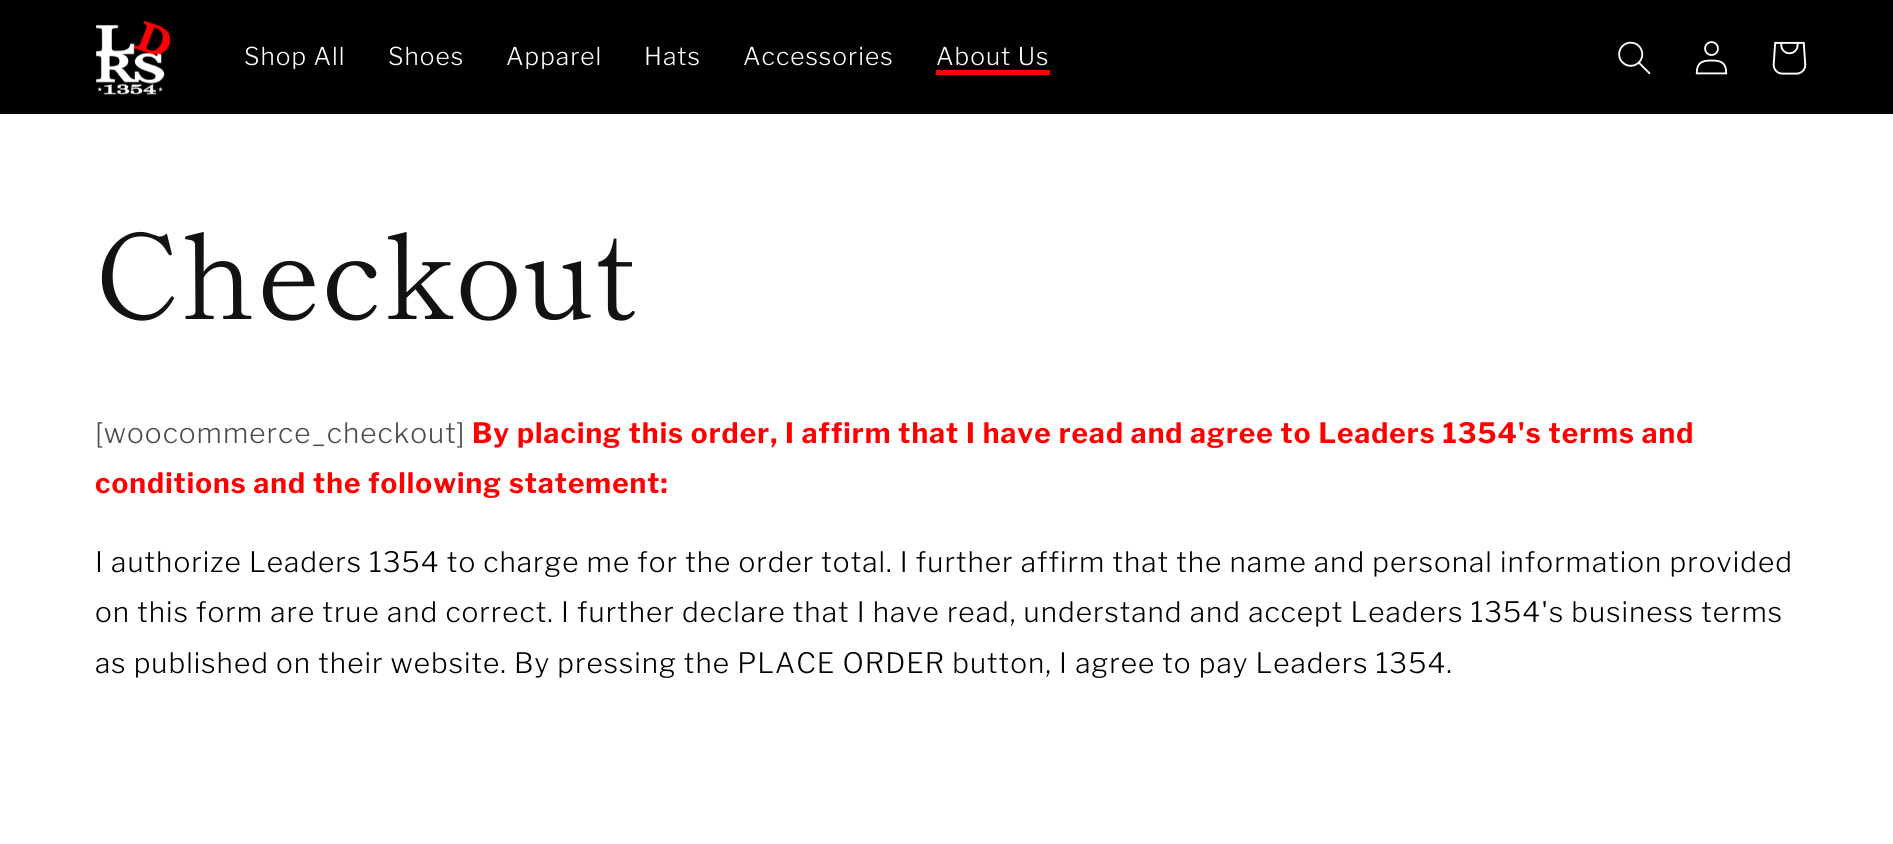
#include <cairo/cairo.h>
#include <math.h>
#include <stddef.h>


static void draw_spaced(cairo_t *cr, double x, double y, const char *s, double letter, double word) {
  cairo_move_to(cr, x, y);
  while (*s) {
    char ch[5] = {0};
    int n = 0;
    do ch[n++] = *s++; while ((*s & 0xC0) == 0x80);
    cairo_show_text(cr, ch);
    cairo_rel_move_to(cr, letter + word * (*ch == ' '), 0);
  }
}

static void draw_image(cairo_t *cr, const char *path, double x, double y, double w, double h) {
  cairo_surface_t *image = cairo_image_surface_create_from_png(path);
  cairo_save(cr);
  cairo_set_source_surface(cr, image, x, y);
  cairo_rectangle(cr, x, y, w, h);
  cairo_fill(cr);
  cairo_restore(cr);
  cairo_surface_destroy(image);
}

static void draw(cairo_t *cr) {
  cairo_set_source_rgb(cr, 1, 1, 1);
  cairo_paint(cr);
  cairo_set_source_rgb(cr, 0, 0, 0);
  cairo_rectangle(cr, 0, 0, 1893, 114);
  cairo_fill(cr);
  draw_image(cr, "images/1.png", 96, 20, 75, 75);
  cairo_set_source_rgb(cr, 1, 0, 0);
  cairo_rectangle(cr, 936, 70, 114, 5);
  cairo_fill(cr);
  draw_image(cr, "images/2.png", 1618, 41, 33, 34);
  draw_image(cr, "images/3.png", 1695, 41, 33, 34);
  draw_image(cr, "images/4.png", 1772, 41, 35, 34);
  cairo_select_font_face(cr, "Libre Franklin Light", CAIRO_FONT_SLANT_NORMAL, CAIRO_FONT_WEIGHT_NORMAL);
  cairo_set_font_size(cr, 24.5);
  cairo_set_source_rgb(cr, 1, 1, 1);
  draw_spaced(cr, 244, 65, "Shop All", 1.05, 0);
  draw_spaced(cr, 388, 65, "Shoes", 1.05, 0);
  draw_spaced(cr, 506, 65, "Apparel", 1.05, 0);
  draw_spaced(cr, 644, 65, "Hats", 1.05, 0);
  draw_spaced(cr, 743, 65, "Accessories", 1.05, 0);
  draw_spaced(cr, 936, 65, "About Us", 1.05, 0);
  cairo_select_font_face(cr, "Shippori Mincho", CAIRO_FONT_SLANT_NORMAL, CAIRO_FONT_WEIGHT_NORMAL);
  cairo_set_font_size(cr, 118.5);
  cairo_set_source_rgb(cr, 18 / 255.0, 18 / 255.0, 18 / 255.0);
  draw_spaced(cr, 95, 319, "Checkout", 1.25, 0);
  cairo_select_font_face(cr, "Libre Franklin Light", CAIRO_FONT_SLANT_NORMAL, CAIRO_FONT_WEIGHT_NORMAL);
  cairo_set_font_size(cr, 28);
  cairo_set_source_rgb(cr, 77 / 255.0, 77 / 255.0, 77 / 255.0);
  draw_spaced(cr, 95, 443, "[woocommerce_checkout]", 1.05, 0);
  cairo_select_font_face(cr, "Libre Franklin", CAIRO_FONT_SLANT_NORMAL, CAIRO_FONT_WEIGHT_BOLD);
  cairo_set_source_rgb(cr, 1, 0, 0);
  draw_spaced(cr, 472, 443, "By placing this order, I affirm that I have read and agree to Leaders 1354's terms and", 1.05, 0);
  draw_spaced(cr, 95, 493, "conditions and the following statement:", 1.05, 0);
  cairo_select_font_face(cr, "Libre Franklin Light", CAIRO_FONT_SLANT_NORMAL, CAIRO_FONT_WEIGHT_NORMAL);
  cairo_set_source_rgb(cr, 0, 0, 0);
  draw_spaced(cr, 95, 572, "I authorize Leaders 1354 to charge me for the order total. I further affirm that the name and personal information provided", 1.05, 0);
  draw_spaced(cr, 95, 622, "on this form are true and correct. I further declare that I have read, understand and accept Leaders 1354's business terms", 1.05, 0);
  draw_spaced(cr, 95, 673, "as published on their website. By pressing the PLACE ORDER button, I agree to pay Leaders 1354.", 1.05, 0);
}

int main(void) {
  cairo_surface_t *surface = cairo_image_surface_create(CAIRO_FORMAT_RGB24, 1893, 844);
  cairo_t *cr = cairo_create(surface);
  cairo_font_options_t *options = cairo_font_options_create();
  cairo_font_options_set_hint_metrics(options, CAIRO_HINT_METRICS_OFF);
  cairo_font_options_set_hint_style(options, CAIRO_HINT_STYLE_NONE);
  cairo_set_font_options(cr, options);
  cairo_set_miter_limit(cr, 4);
  draw(cr);
  cairo_surface_write_to_png(surface, "out.png");
  cairo_font_options_destroy(options);
  cairo_destroy(cr);
  cairo_surface_destroy(surface);
  return 0;
}
